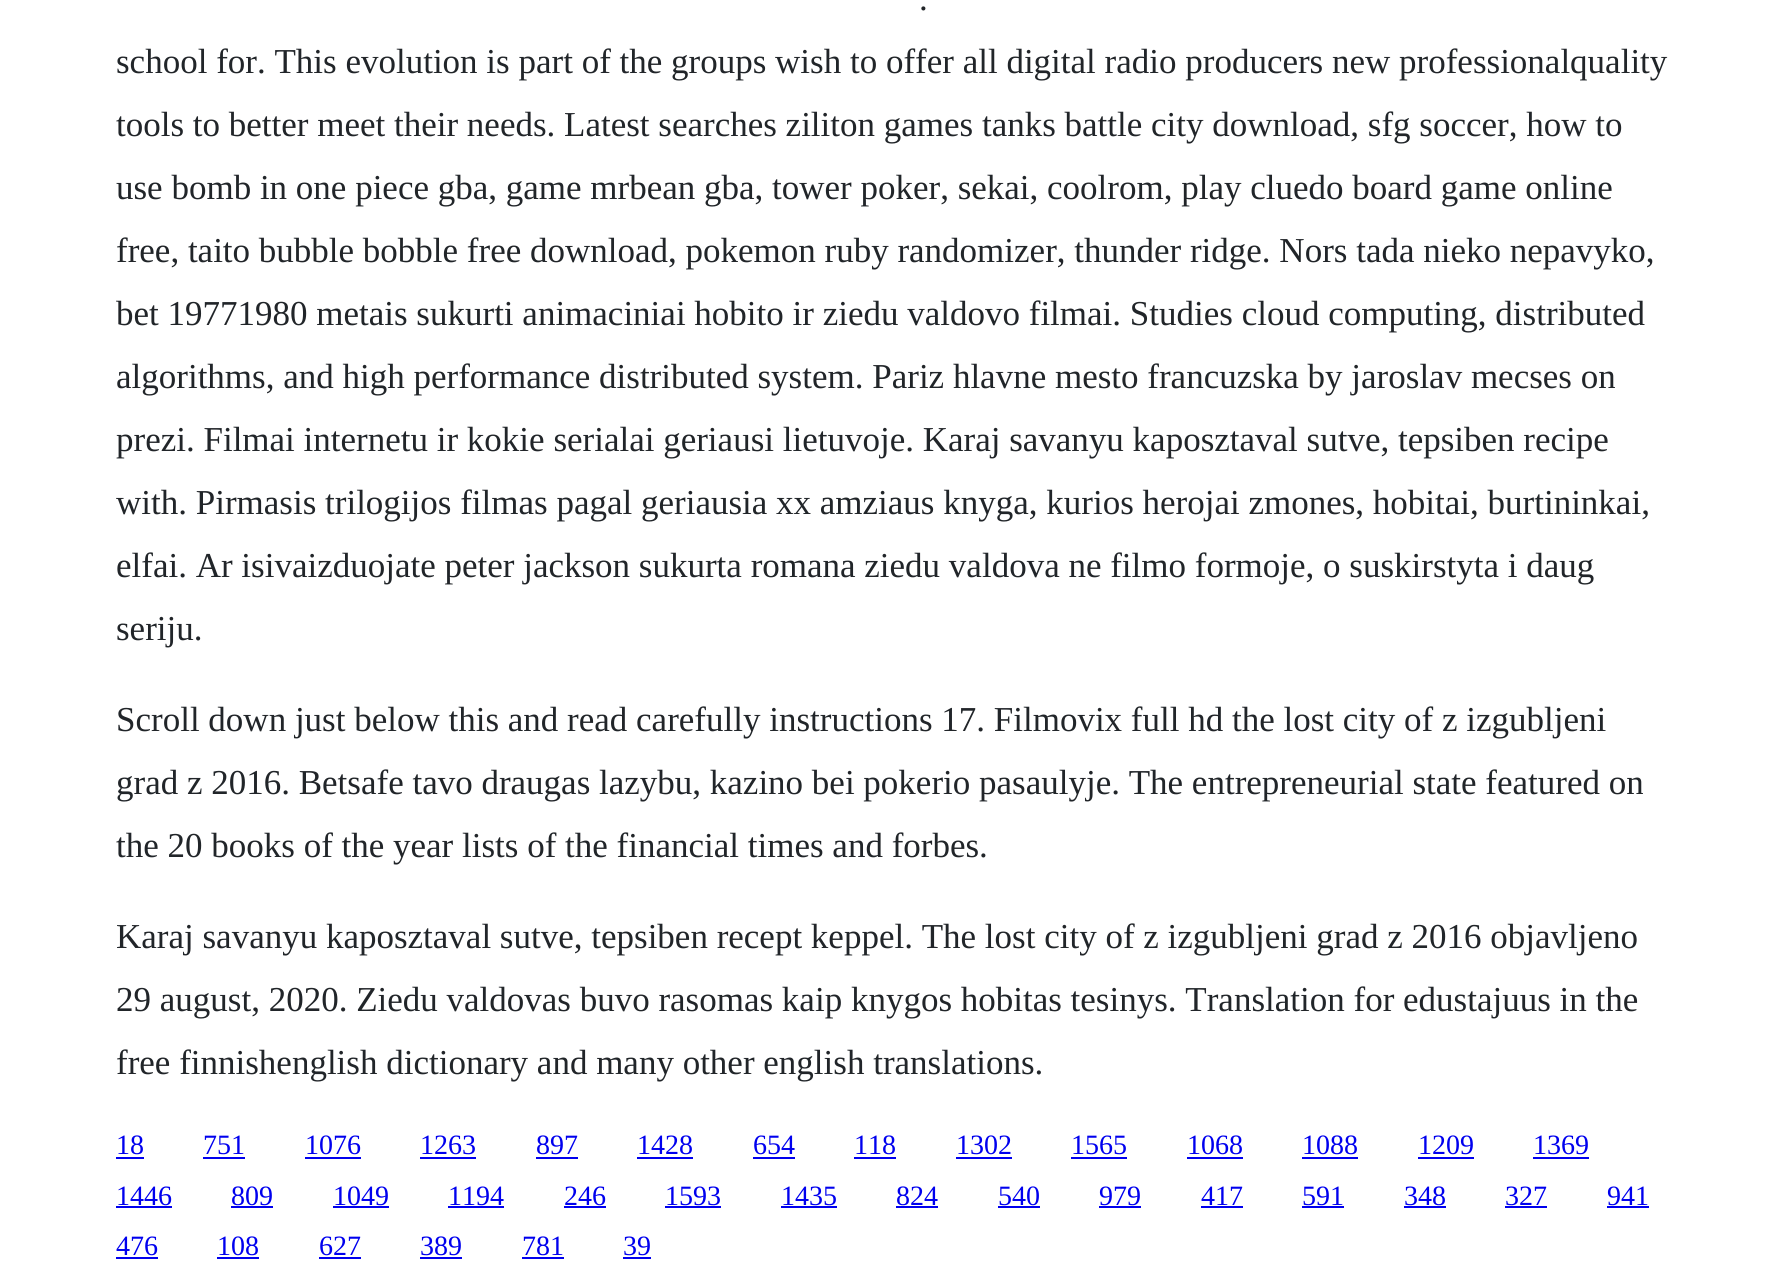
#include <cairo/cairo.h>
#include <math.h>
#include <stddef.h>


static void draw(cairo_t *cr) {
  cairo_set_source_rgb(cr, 1, 1, 1);
  cairo_paint(cr);
  cairo_set_source_rgb(cr, 0, 0, 238 / 255.0);
  cairo_rectangle(cr, 116, 1157, 28, 2);
  cairo_fill(cr);
  cairo_rectangle(cr, 203, 1157, 42, 2);
  cairo_fill(cr);
  cairo_rectangle(cr, 305, 1157, 56, 2);
  cairo_fill(cr);
  cairo_rectangle(cr, 420, 1157, 56, 2);
  cairo_fill(cr);
  cairo_rectangle(cr, 536, 1157, 42, 2);
  cairo_fill(cr);
  cairo_rectangle(cr, 637, 1157, 56, 2);
  cairo_fill(cr);
  cairo_rectangle(cr, 753, 1157, 42, 2);
  cairo_fill(cr);
  cairo_rectangle(cr, 854, 1157, 42, 2);
  cairo_fill(cr);
  cairo_rectangle(cr, 956, 1157, 56, 2);
  cairo_fill(cr);
  cairo_rectangle(cr, 1071, 1157, 56, 2);
  cairo_fill(cr);
  cairo_rectangle(cr, 1187, 1157, 56, 2);
  cairo_fill(cr);
  cairo_rectangle(cr, 1302, 1157, 56, 2);
  cairo_fill(cr);
  cairo_rectangle(cr, 1418, 1157, 56, 2);
  cairo_fill(cr);
  cairo_rectangle(cr, 1533, 1157, 56, 2);
  cairo_fill(cr);
  cairo_rectangle(cr, 116, 1206, 56, 2);
  cairo_fill(cr);
  cairo_rectangle(cr, 231, 1206, 42, 2);
  cairo_fill(cr);
  cairo_rectangle(cr, 333, 1206, 56, 2);
  cairo_fill(cr);
  cairo_rectangle(cr, 448, 1206, 56, 2);
  cairo_fill(cr);
  cairo_rectangle(cr, 564, 1206, 42, 2);
  cairo_fill(cr);
  cairo_rectangle(cr, 665, 1206, 56, 2);
  cairo_fill(cr);
  cairo_rectangle(cr, 781, 1206, 56, 2);
  cairo_fill(cr);
  cairo_rectangle(cr, 896, 1206, 42, 2);
  cairo_fill(cr);
  cairo_rectangle(cr, 998, 1206, 42, 2);
  cairo_fill(cr);
  cairo_rectangle(cr, 1099, 1206, 42, 2);
  cairo_fill(cr);
  cairo_rectangle(cr, 1201, 1206, 42, 2);
  cairo_fill(cr);
  cairo_rectangle(cr, 1302, 1206, 42, 2);
  cairo_fill(cr);
  cairo_rectangle(cr, 1404, 1206, 42, 2);
  cairo_fill(cr);
  cairo_rectangle(cr, 1505, 1206, 42, 2);
  cairo_fill(cr);
  cairo_rectangle(cr, 1607, 1206, 42, 2);
  cairo_fill(cr);
  cairo_rectangle(cr, 116, 1257, 42, 2);
  cairo_fill(cr);
  cairo_rectangle(cr, 217, 1257, 42, 2);
  cairo_fill(cr);
  cairo_rectangle(cr, 319, 1257, 42, 2);
  cairo_fill(cr);
  cairo_rectangle(cr, 420, 1257, 42, 2);
  cairo_fill(cr);
  cairo_rectangle(cr, 522, 1257, 42, 2);
  cairo_fill(cr);
  cairo_rectangle(cr, 623, 1257, 28, 2);
  cairo_fill(cr);
  cairo_select_font_face(cr, "Liberation Serif", CAIRO_FONT_SLANT_NORMAL, CAIRO_FONT_WEIGHT_NORMAL);
  cairo_set_font_size(cr, 35);
  cairo_set_source_rgb(cr, 33 / 255.0, 37 / 255.0, 41 / 255.0);
  cairo_move_to(cr, 919, 10);
  cairo_show_text(cr, ".");
  cairo_move_to(cr, 116, 73);
  cairo_show_text(cr, "school for. This evolution is part of the groups wish to offer all digital radio producers new professionalquality");
  cairo_move_to(cr, 116, 136);
  cairo_show_text(cr, "tools to better meet their needs. Latest searches ziliton games tanks battle city download, sfg soccer, how to");
  cairo_move_to(cr, 116, 199);
  cairo_show_text(cr, "use bomb in one piece gba, game mrbean gba, tower poker, sekai, coolrom, play cluedo board game online");
  cairo_move_to(cr, 116, 262);
  cairo_show_text(cr, "free, taito bubble bobble free download, pokemon ruby randomizer, thunder ridge. Nors tada nieko nepavyko,");
  cairo_move_to(cr, 116, 325);
  cairo_show_text(cr, "bet 19771980 metais sukurti animaciniai hobito ir ziedu valdovo filmai. Studies cloud computing, distributed");
  cairo_move_to(cr, 116, 388);
  cairo_show_text(cr, "algorithms, and high performance distributed system. Pariz hlavne mesto francuzska by jaroslav mecses on");
  cairo_move_to(cr, 116, 451);
  cairo_show_text(cr, "prezi. Filmai internetu ir kokie serialai geriausi lietuvoje. Karaj savanyu kaposztaval sutve, tepsiben recipe");
  cairo_move_to(cr, 116, 514);
  cairo_show_text(cr, "with. Pirmasis trilogijos filmas pagal geriausia xx amziaus knyga, kurios herojai zmones, hobitai, burtininkai,");
  cairo_move_to(cr, 116, 577);
  cairo_show_text(cr, "elfai. Ar isivaizduojate peter jackson sukurta romana ziedu valdova ne filmo formoje, o suskirstyta i daug");
  cairo_move_to(cr, 116, 640);
  cairo_show_text(cr, "seriju.");
  cairo_move_to(cr, 116, 731);
  cairo_show_text(cr, "Scroll down just below this and read carefully instructions 17. Filmovix full hd the lost city of z izgubljeni");
  cairo_move_to(cr, 116, 794);
  cairo_show_text(cr, "grad z 2016. Betsafe tavo draugas lazybu, kazino bei pokerio pasaulyje. The entrepreneurial state featured on");
  cairo_move_to(cr, 116, 857);
  cairo_show_text(cr, "the 20 books of the year lists of the financial times and forbes.");
  cairo_move_to(cr, 116, 948);
  cairo_show_text(cr, "Karaj savanyu kaposztaval sutve, tepsiben recept keppel. The lost city of z izgubljeni grad z 2016 objavljeno");
  cairo_move_to(cr, 116, 1011);
  cairo_show_text(cr, "29 august, 2020. Ziedu valdovas buvo rasomas kaip knygos hobitas tesinys. Translation for edustajuus in the");
  cairo_move_to(cr, 116, 1074);
  cairo_show_text(cr, "free finnishenglish dictionary and many other english translations.");
  cairo_set_font_size(cr, 28);
  cairo_set_source_rgb(cr, 0, 0, 238 / 255.0);
  cairo_move_to(cr, 116, 1154);
  cairo_show_text(cr, "18");
  cairo_move_to(cr, 203, 1154);
  cairo_show_text(cr, "751");
  cairo_move_to(cr, 305, 1154);
  cairo_show_text(cr, "1076");
  cairo_move_to(cr, 420, 1154);
  cairo_show_text(cr, "1263");
  cairo_move_to(cr, 536, 1154);
  cairo_show_text(cr, "897");
  cairo_move_to(cr, 637, 1154);
  cairo_show_text(cr, "1428");
  cairo_move_to(cr, 753, 1154);
  cairo_show_text(cr, "654");
  cairo_move_to(cr, 854, 1154);
  cairo_show_text(cr, "118");
  cairo_move_to(cr, 956, 1154);
  cairo_show_text(cr, "1302");
  cairo_move_to(cr, 1071, 1154);
  cairo_show_text(cr, "1565");
  cairo_move_to(cr, 1187, 1154);
  cairo_show_text(cr, "1068");
  cairo_move_to(cr, 1302, 1154);
  cairo_show_text(cr, "1088");
  cairo_move_to(cr, 1418, 1154);
  cairo_show_text(cr, "1209");
  cairo_move_to(cr, 1533, 1154);
  cairo_show_text(cr, "1369");
  cairo_move_to(cr, 116, 1205);
  cairo_show_text(cr, "1446");
  cairo_move_to(cr, 231, 1205);
  cairo_show_text(cr, "809");
  cairo_move_to(cr, 333, 1205);
  cairo_show_text(cr, "1049");
  cairo_move_to(cr, 448, 1205);
  cairo_show_text(cr, "1194");
  cairo_move_to(cr, 564, 1205);
  cairo_show_text(cr, "246");
  cairo_move_to(cr, 665, 1205);
  cairo_show_text(cr, "1593");
  cairo_move_to(cr, 781, 1205);
  cairo_show_text(cr, "1435");
  cairo_move_to(cr, 896, 1205);
  cairo_show_text(cr, "824");
  cairo_move_to(cr, 998, 1205);
  cairo_show_text(cr, "540");
  cairo_move_to(cr, 1099, 1205);
  cairo_show_text(cr, "979");
  cairo_move_to(cr, 1201, 1205);
  cairo_show_text(cr, "417");
  cairo_move_to(cr, 1302, 1205);
  cairo_show_text(cr, "591");
  cairo_move_to(cr, 1404, 1205);
  cairo_show_text(cr, "348");
  cairo_move_to(cr, 1505, 1205);
  cairo_show_text(cr, "327");
  cairo_move_to(cr, 1607, 1205);
  cairo_show_text(cr, "941");
  cairo_move_to(cr, 116, 1255);
  cairo_show_text(cr, "476");
  cairo_move_to(cr, 217, 1255);
  cairo_show_text(cr, "108");
  cairo_move_to(cr, 319, 1255);
  cairo_show_text(cr, "627");
  cairo_move_to(cr, 420, 1255);
  cairo_show_text(cr, "389");
  cairo_move_to(cr, 522, 1255);
  cairo_show_text(cr, "781");
  cairo_move_to(cr, 623, 1255);
  cairo_show_text(cr, "39");
}

int main(void) {
  cairo_surface_t *surface = cairo_image_surface_create(CAIRO_FORMAT_RGB24, 1790, 1285);
  cairo_t *cr = cairo_create(surface);
  cairo_font_options_t *options = cairo_font_options_create();
  cairo_font_options_set_hint_metrics(options, CAIRO_HINT_METRICS_OFF);
  cairo_font_options_set_hint_style(options, CAIRO_HINT_STYLE_NONE);
  cairo_set_font_options(cr, options);
  cairo_set_miter_limit(cr, 4);
  draw(cr);
  cairo_surface_write_to_png(surface, "out.png");
  cairo_font_options_destroy(options);
  cairo_destroy(cr);
  cairo_surface_destroy(surface);
  return 0;
}
